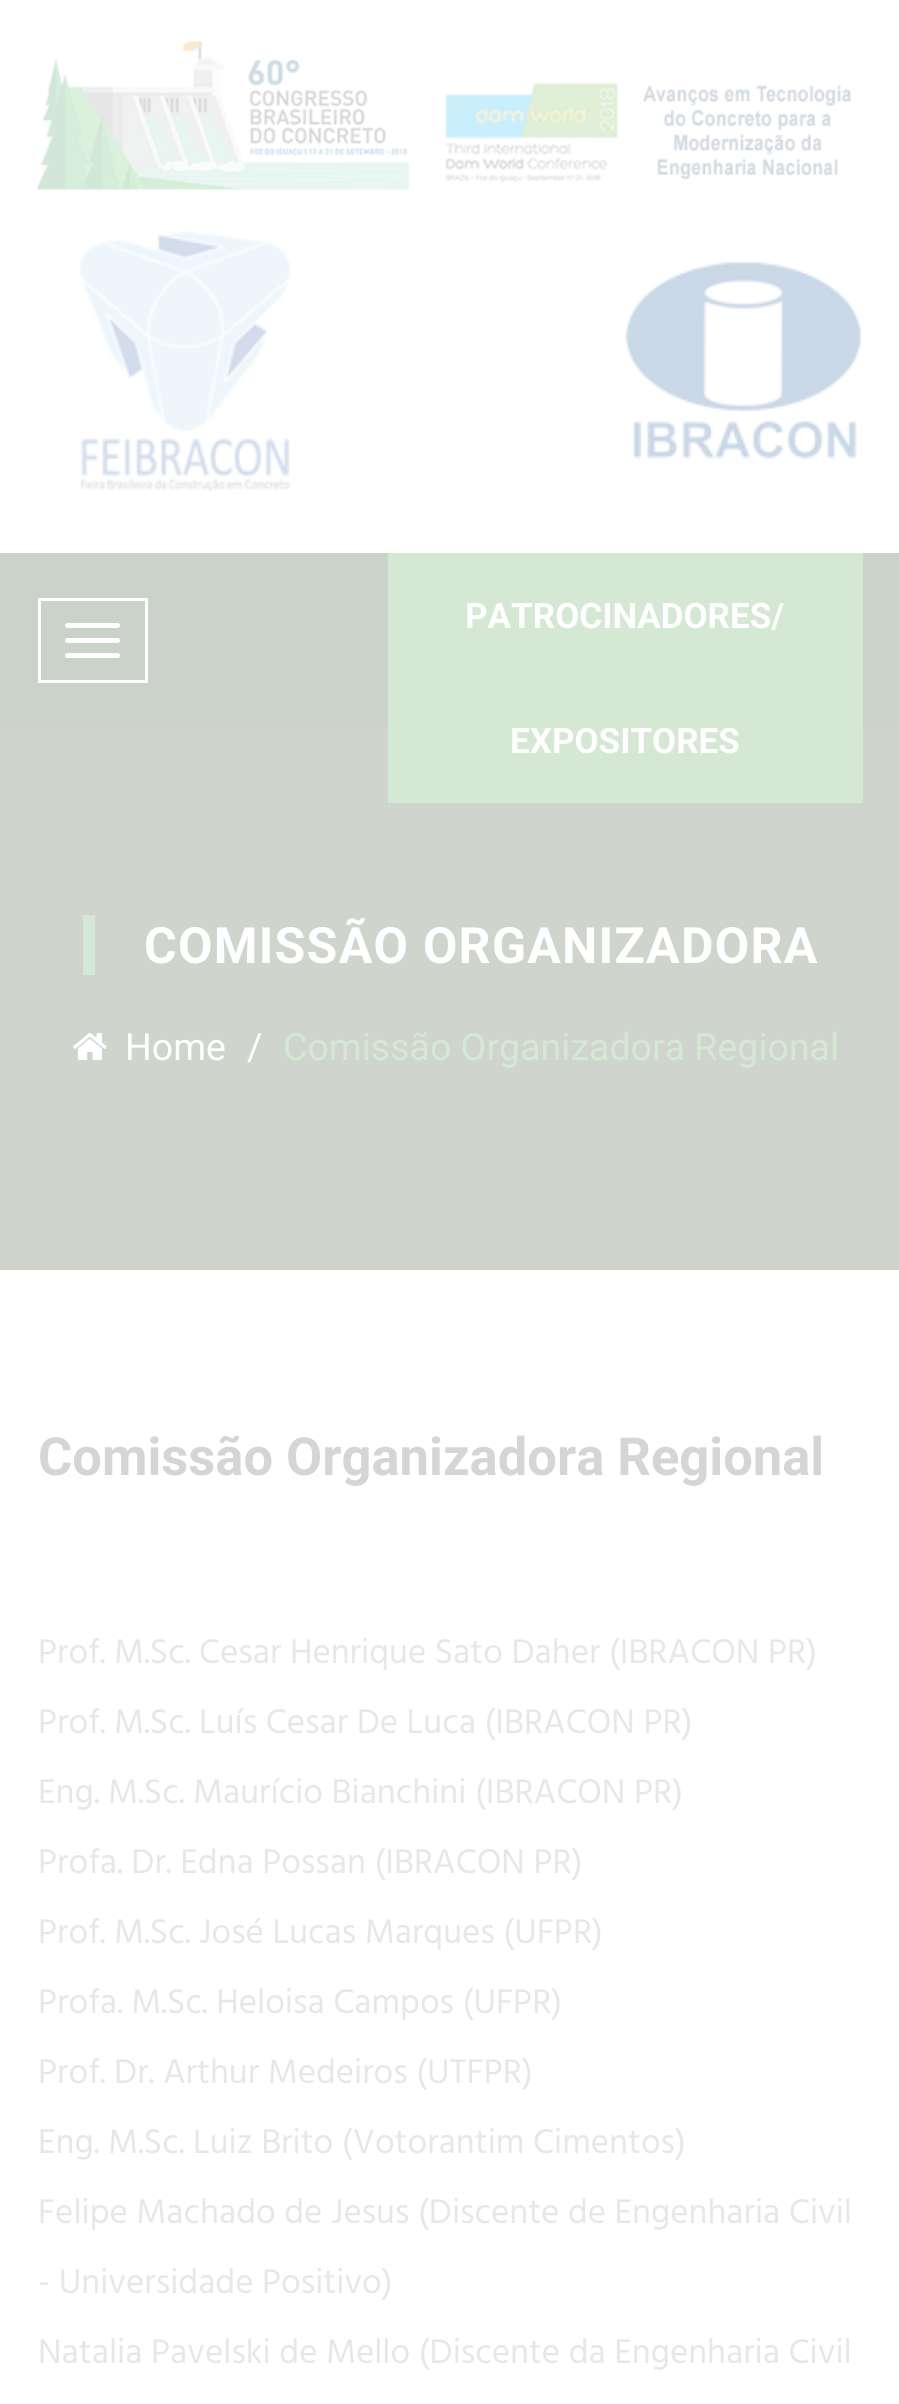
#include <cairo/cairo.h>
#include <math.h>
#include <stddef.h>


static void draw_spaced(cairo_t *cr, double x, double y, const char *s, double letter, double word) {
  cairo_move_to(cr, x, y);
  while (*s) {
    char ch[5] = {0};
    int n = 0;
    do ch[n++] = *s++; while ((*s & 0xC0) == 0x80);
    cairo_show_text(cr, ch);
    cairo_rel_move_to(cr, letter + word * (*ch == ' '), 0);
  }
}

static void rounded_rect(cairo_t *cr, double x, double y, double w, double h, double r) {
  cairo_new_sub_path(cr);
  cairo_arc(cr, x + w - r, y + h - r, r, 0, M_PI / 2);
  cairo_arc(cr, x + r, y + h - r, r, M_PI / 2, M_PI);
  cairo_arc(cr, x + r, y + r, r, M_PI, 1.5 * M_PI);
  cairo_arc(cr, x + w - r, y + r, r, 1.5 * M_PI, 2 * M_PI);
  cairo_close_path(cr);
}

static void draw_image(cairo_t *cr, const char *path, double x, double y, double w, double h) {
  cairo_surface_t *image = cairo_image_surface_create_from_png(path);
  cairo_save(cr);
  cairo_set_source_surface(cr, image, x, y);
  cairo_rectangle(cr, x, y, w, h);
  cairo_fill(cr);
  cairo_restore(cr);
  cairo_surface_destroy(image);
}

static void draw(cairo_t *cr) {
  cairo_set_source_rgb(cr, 1, 1, 1);
  cairo_paint(cr);
  draw_image(cr, "images/1.png", 37, 41, 815, 149);
  draw_image(cr, "images/2.png", 78, 229, 783, 263);
  cairo_set_source_rgb(cr, 202 / 255.0, 210 / 255.0, 202 / 255.0);
  cairo_rectangle(cr, 0, 553, 899, 175);
  cairo_fill(cr);
  cairo_rectangle(cr, 39.5, 599.5, 107, 82);
  cairo_set_source_rgb(cr, 1, 1, 1);
  cairo_set_line_width(cr, 3);
  cairo_stroke(cr);
  rounded_rect(cr, 65, 623, 55, 5, 2.5);
  cairo_fill(cr);
  rounded_rect(cr, 65, 638, 55, 5, 2.5);
  cairo_fill(cr);
  rounded_rect(cr, 65, 653, 55, 5, 2.5);
  cairo_fill(cr);
  cairo_set_source_rgb(cr, 207 / 255.0, 213 / 255.0, 204 / 255.0);
  cairo_rectangle(cr, 0, 728, 899, 542);
  cairo_fill(cr);
  cairo_set_source_rgb(cr, 213 / 255.0, 232 / 255.0, 212 / 255.0);
  cairo_rectangle(cr, 388, 553, 475, 250);
  cairo_fill(cr);
  cairo_rectangle(cr, 83, 915, 12, 60);
  cairo_fill(cr);
  draw_image(cr, "images/3.png", 73, 1033, 34, 27);
  cairo_select_font_face(cr, "Roboto", CAIRO_FONT_SLANT_NORMAL, CAIRO_FONT_WEIGHT_BOLD);
  cairo_set_font_size(cr, 35);
  cairo_set_source_rgb(cr, 1, 1, 1);
  cairo_move_to(cr, 465, 628);
  cairo_show_text(cr, "PATROCINADORES/");
  cairo_move_to(cr, 510, 753);
  cairo_show_text(cr, "EXPOSITORES");
  cairo_set_font_size(cr, 50);
  draw_spaced(cr, 144, 963, "COMISSÃO ORGANIZADORA", 1.25, 0);
  cairo_select_font_face(cr, "Roboto", CAIRO_FONT_SLANT_NORMAL, CAIRO_FONT_WEIGHT_NORMAL);
  cairo_set_font_size(cr, 37.5);
  cairo_move_to(cr, 125, 1060);
  cairo_show_text(cr, "Home");
  cairo_move_to(cr, 247, 1060);
  cairo_show_text(cr, "/");
  cairo_set_source_rgb(cr, 213 / 255.0, 232 / 255.0, 212 / 255.0);
  cairo_move_to(cr, 283, 1060);
  cairo_show_text(cr, "Comissão Organizadora Regional");
  cairo_select_font_face(cr, "Roboto", CAIRO_FONT_SLANT_NORMAL, CAIRO_FONT_WEIGHT_BOLD);
  cairo_set_font_size(cr, 52.5);
  cairo_set_source_rgb(cr, 213 / 255.0, 213 / 255.0, 213 / 255.0);
  cairo_move_to(cr, 38, 1475);
  cairo_show_text(cr, "Comissão Organizadora Regional");
  cairo_select_font_face(cr, "Hind", CAIRO_FONT_SLANT_NORMAL, CAIRO_FONT_WEIGHT_NORMAL);
  cairo_set_font_size(cr, 35);
  cairo_set_source_rgb(cr, 231 / 255.0, 231 / 255.0, 231 / 255.0);
  cairo_move_to(cr, 38, 1663);
  cairo_show_text(cr, "Prof. M.Sc. Cesar Henrique Sato Daher (IBRACON PR)");
  cairo_move_to(cr, 38, 1733);
  cairo_show_text(cr, "Prof. M.Sc. Luís Cesar De Luca (IBRACON PR)");
  cairo_move_to(cr, 38, 1803);
  cairo_show_text(cr, "Eng. M.Sc. Maurício Bianchini (IBRACON PR)");
  cairo_move_to(cr, 38, 1873);
  cairo_show_text(cr, "Profa. Dr. Edna Possan (IBRACON PR)");
  cairo_move_to(cr, 38, 1943);
  cairo_show_text(cr, "Prof. M.Sc. José Lucas Marques (UFPR)");
  cairo_move_to(cr, 38, 2013);
  cairo_show_text(cr, "Profa. M.Sc. Heloisa Campos (UFPR)");
  cairo_move_to(cr, 38, 2083);
  cairo_show_text(cr, "Prof. Dr. Arthur Medeiros (UTFPR)");
  cairo_move_to(cr, 38, 2153);
  cairo_show_text(cr, "Eng. M.Sc. Luiz Brito (Votorantim Cimentos)");
  cairo_move_to(cr, 38, 2223);
  cairo_show_text(cr, "Felipe Machado de Jesus (Discente de Engenharia Civil");
  cairo_move_to(cr, 38, 2293);
  cairo_show_text(cr, "- Universidade Positivo)");
  cairo_move_to(cr, 38, 2363);
  cairo_show_text(cr, "Natalia Pavelski de Mello (Discente da Engenharia Civil");
}

int main(void) {
  cairo_surface_t *surface = cairo_image_surface_create(CAIRO_FORMAT_RGB24, 899, 2404);
  cairo_t *cr = cairo_create(surface);
  cairo_font_options_t *options = cairo_font_options_create();
  cairo_font_options_set_hint_metrics(options, CAIRO_HINT_METRICS_OFF);
  cairo_font_options_set_hint_style(options, CAIRO_HINT_STYLE_NONE);
  cairo_set_font_options(cr, options);
  cairo_set_miter_limit(cr, 4);
  draw(cr);
  cairo_surface_write_to_png(surface, "out.png");
  cairo_font_options_destroy(options);
  cairo_destroy(cr);
  cairo_surface_destroy(surface);
  return 0;
}
